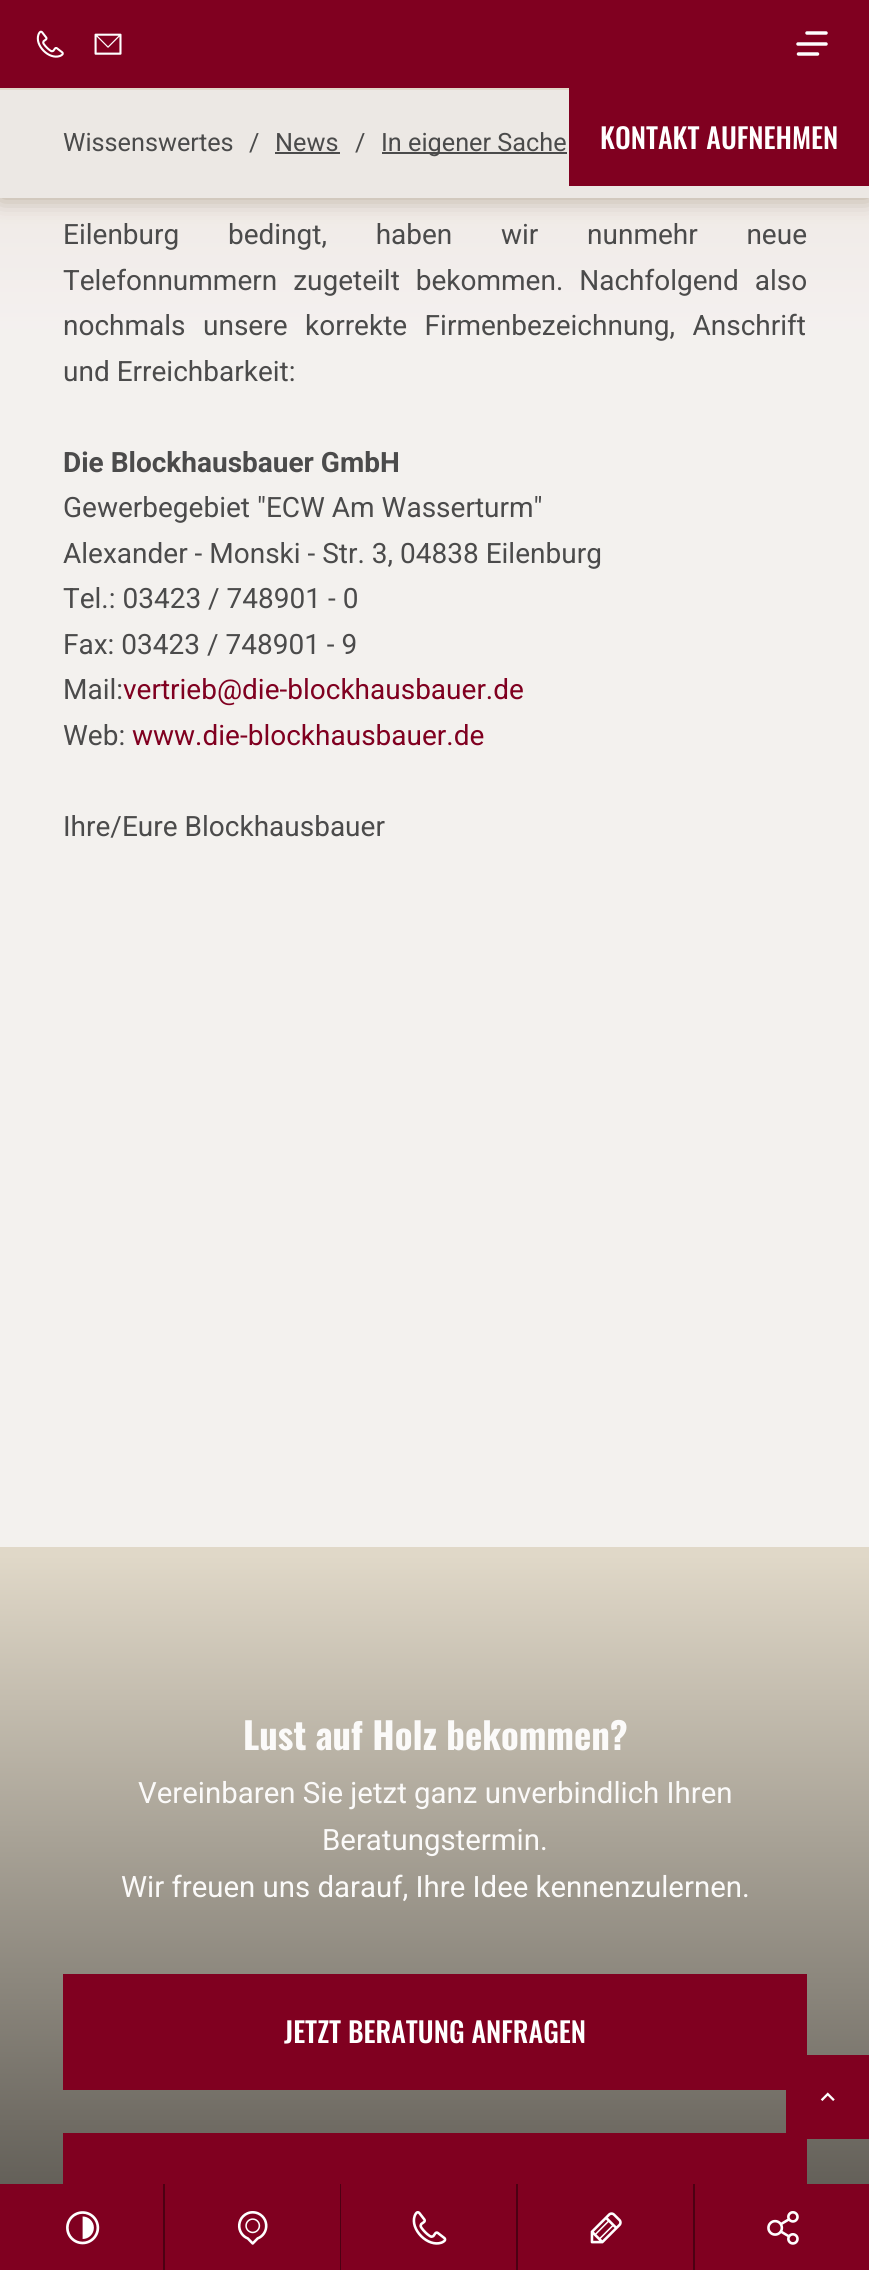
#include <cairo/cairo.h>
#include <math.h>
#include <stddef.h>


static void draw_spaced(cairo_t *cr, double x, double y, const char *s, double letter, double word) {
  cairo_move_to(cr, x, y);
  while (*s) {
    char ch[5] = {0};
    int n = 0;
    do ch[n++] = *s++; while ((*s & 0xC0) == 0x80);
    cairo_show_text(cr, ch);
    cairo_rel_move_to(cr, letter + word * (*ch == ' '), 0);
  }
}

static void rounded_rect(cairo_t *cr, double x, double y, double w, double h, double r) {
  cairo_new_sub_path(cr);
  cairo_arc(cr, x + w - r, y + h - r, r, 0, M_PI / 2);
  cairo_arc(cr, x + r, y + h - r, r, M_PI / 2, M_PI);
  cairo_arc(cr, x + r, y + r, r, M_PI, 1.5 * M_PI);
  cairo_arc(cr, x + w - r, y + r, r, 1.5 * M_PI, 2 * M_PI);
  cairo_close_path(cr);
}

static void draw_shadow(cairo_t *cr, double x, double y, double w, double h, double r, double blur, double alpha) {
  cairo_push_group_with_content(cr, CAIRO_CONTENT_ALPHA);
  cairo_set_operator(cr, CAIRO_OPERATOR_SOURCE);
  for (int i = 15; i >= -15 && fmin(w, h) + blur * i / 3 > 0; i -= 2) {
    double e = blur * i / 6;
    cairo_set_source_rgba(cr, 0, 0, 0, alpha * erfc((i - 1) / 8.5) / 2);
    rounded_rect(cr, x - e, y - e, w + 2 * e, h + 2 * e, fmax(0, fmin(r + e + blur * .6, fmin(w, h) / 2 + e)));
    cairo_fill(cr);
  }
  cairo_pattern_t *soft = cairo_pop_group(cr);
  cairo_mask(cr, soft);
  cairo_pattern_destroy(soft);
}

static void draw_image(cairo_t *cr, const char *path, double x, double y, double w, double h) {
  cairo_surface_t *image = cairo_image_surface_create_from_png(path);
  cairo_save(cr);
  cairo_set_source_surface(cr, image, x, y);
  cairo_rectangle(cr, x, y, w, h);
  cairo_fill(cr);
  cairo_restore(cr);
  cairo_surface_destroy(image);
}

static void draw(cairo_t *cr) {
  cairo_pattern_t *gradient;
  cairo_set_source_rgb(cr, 1, 1, 1);
  cairo_paint(cr);
  gradient = cairo_pattern_create_linear(435, -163, 435, 329);
  cairo_pattern_add_color_stop_rgba(gradient, 0, 228 / 255.0, 218 / 255.0, 206 / 255.0, 1);
  cairo_pattern_add_color_stop_rgba(gradient, 0.4, 235 / 255.0, 228 / 255.0, 221 / 255.0, 1);
  cairo_pattern_add_color_stop_rgba(gradient, 1, 244 / 255.0, 240 / 255.0, 239 / 255.0, 1);
  cairo_set_source(cr, gradient);
  cairo_pattern_destroy(gradient);
  cairo_rectangle(cr, 0, 198, 869, 131);
  cairo_fill(cr);
  cairo_set_source_rgb(cr, 147 / 255.0, 130 / 255.0, 104 / 255.0);
  draw_shadow(cr, 0, 88, 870, 110, 0, 12, 0.65);
  cairo_set_source_rgb(cr, 128 / 255.0, 0, 32 / 255.0);
  cairo_rectangle(cr, 0, 0, 869, 88);
  cairo_fill(cr);
  draw_image(cr, "images/1.png", 36, 30, 28, 28);
  draw_image(cr, "images/2.png", 94, 33, 28, 22);
  cairo_new_path(cr);
  cairo_move_to(cr, 826, 33);
  cairo_line_to(cr, 807, 33);
  cairo_move_to(cr, 817.5, 54);
  cairo_line_to(cr, 798.5, 54);
  cairo_move_to(cr, 798, 44);
  cairo_line_to(cr, 826, 44);
  cairo_set_source_rgb(cr, 1, 1, 1);
  cairo_set_line_width(cr, 3.5);
  cairo_set_line_cap(cr, CAIRO_LINE_CAP_ROUND);
  cairo_set_line_join(cr, CAIRO_LINE_JOIN_ROUND);
  cairo_stroke(cr);
  cairo_set_source_rgb(cr, 236 / 255.0, 232 / 255.0, 228 / 255.0);
  cairo_rectangle(cr, 0, 90, 869, 108);
  cairo_fill(cr);
  cairo_set_source_rgb(cr, 226 / 255.0, 215 / 255.0, 202 / 255.0);
  cairo_rectangle(cr, 0, 88, 569, 2);
  cairo_fill(cr);
  cairo_set_source_rgb(cr, 75 / 255.0, 75 / 255.0, 75 / 255.0);
  cairo_rectangle(cr, 275, 152, 65, 2);
  cairo_fill(cr);
  cairo_rectangle(cr, 382, 152, 185, 2);
  cairo_fill(cr);
  cairo_set_source_rgb(cr, 128 / 255.0, 0, 32 / 255.0);
  cairo_rectangle(cr, 569, 88, 300, 98);
  cairo_fill(cr);
  cairo_set_source_rgb(cr, 243 / 255.0, 241 / 255.0, 238 / 255.0);
  cairo_rectangle(cr, 0, 329, 869, 1218);
  cairo_fill(cr);
  gradient = cairo_pattern_create_linear(435, 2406, 435, 1547);
  cairo_pattern_add_color_stop_rgba(gradient, 0, 56 / 255.0, 54 / 255.0, 50 / 255.0, 1);
  cairo_pattern_add_color_stop_rgba(gradient, 0.99, 224 / 255.0, 216 / 255.0, 200 / 255.0, 1);
  cairo_set_source(cr, gradient);
  cairo_pattern_destroy(gradient);
  cairo_rectangle(cr, 0, 1547, 869, 637);
  cairo_fill(cr);
  cairo_set_source_rgb(cr, 128 / 255.0, 0, 32 / 255.0);
  cairo_rectangle(cr, 63, 1974, 744, 116);
  cairo_fill(cr);
  cairo_rectangle(cr, 63, 2133, 744, 51);
  cairo_fill(cr);
  cairo_rectangle(cr, 0, 2184, 163, 86);
  cairo_fill(cr);
  cairo_set_source_rgb(cr, 77 / 255.0, 0, 19 / 255.0);
  cairo_rectangle(cr, 163, 2184, 2, 86);
  cairo_fill(cr);
  draw_image(cr, "images/3.png", 66, 2211, 34, 34);
  cairo_set_source_rgb(cr, 128 / 255.0, 0, 32 / 255.0);
  cairo_rectangle(cr, 165, 2184, 175, 86);
  cairo_fill(cr);
  cairo_set_source_rgb(cr, 77 / 255.0, 0, 19 / 255.0);
  cairo_rectangle(cr, 340, 2184, 1, 86);
  cairo_fill(cr);
  draw_image(cr, "images/4.png", 237, 2211, 31, 34);
  cairo_set_source_rgb(cr, 128 / 255.0, 0, 32 / 255.0);
  cairo_rectangle(cr, 341, 2184, 175, 86);
  cairo_fill(cr);
  cairo_set_source_rgb(cr, 77 / 255.0, 0, 19 / 255.0);
  cairo_rectangle(cr, 516, 2184, 2, 86);
  cairo_fill(cr);
  draw_image(cr, "images/5.png", 412, 2211, 35, 34);
  cairo_set_source_rgb(cr, 128 / 255.0, 0, 32 / 255.0);
  cairo_rectangle(cr, 518, 2184, 175, 86);
  cairo_fill(cr);
  cairo_set_source_rgb(cr, 77 / 255.0, 0, 19 / 255.0);
  cairo_rectangle(cr, 693, 2184, 2, 86);
  cairo_fill(cr);
  draw_image(cr, "images/6.png", 590, 2212, 32, 32);
  cairo_set_source_rgb(cr, 128 / 255.0, 0, 32 / 255.0);
  cairo_rectangle(cr, 695, 2184, 174, 86);
  cairo_fill(cr);
  draw_image(cr, "images/7.png", 767, 2211, 32, 34);
  cairo_rectangle(cr, 786, 2055, 83, 84);
  cairo_fill(cr);
  draw_image(cr, "images/8.png", 820, 2092, 15, 9);
  cairo_select_font_face(cr, "Roboto", CAIRO_FONT_SLANT_NORMAL, CAIRO_FONT_WEIGHT_NORMAL);
  cairo_set_font_size(cr, 25.25);
  cairo_set_source_rgb(cr, 75 / 255.0, 75 / 255.0, 75 / 255.0);
  cairo_move_to(cr, 63, 151);
  cairo_show_text(cr, "Wissenswertes");
  cairo_move_to(cr, 249, 151);
  cairo_show_text(cr, "/");
  cairo_move_to(cr, 275, 151);
  cairo_show_text(cr, "News");
  cairo_move_to(cr, 355, 151);
  cairo_show_text(cr, "/");
  cairo_move_to(cr, 381, 151);
  cairo_show_text(cr, "In eigener Sache");
  cairo_select_font_face(cr, "Oswald Medium", CAIRO_FONT_SLANT_NORMAL, CAIRO_FONT_WEIGHT_NORMAL);
  cairo_set_font_size(cr, 28);
  cairo_set_source_rgb(cr, 1, 1, 1);
  cairo_move_to(cr, 600, 149);
  cairo_show_text(cr, "KONTAKT AUFNEHMEN");
  cairo_select_font_face(cr, "Roboto", CAIRO_FONT_SLANT_NORMAL, CAIRO_FONT_WEIGHT_NORMAL);
  cairo_set_source_rgb(cr, 75 / 255.0, 75 / 255.0, 75 / 255.0);
  draw_spaced(cr, 63, 244, "Eilenburg bedingt, haben wir nunmehr neue", 0, 41.75);
  draw_spaced(cr, 63, 290, "Telefonnummern zugeteilt bekommen. Nachfolgend also", 0, 9);
  draw_spaced(cr, 63, 335, "nochmals unsere korrekte Firmenbezeichnung, Anschrift", 0, 10.5);
  cairo_move_to(cr, 63, 381);
  cairo_show_text(cr, "und Erreichbarkeit:");
  cairo_select_font_face(cr, "Roboto", CAIRO_FONT_SLANT_NORMAL, CAIRO_FONT_WEIGHT_BOLD);
  cairo_move_to(cr, 63, 472);
  cairo_show_text(cr, "Die Blockhausbauer GmbH");
  cairo_select_font_face(cr, "Roboto", CAIRO_FONT_SLANT_NORMAL, CAIRO_FONT_WEIGHT_NORMAL);
  cairo_move_to(cr, 63, 517);
  cairo_show_text(cr, "Gewerbegebiet \"ECW Am Wasserturm\"");
  cairo_move_to(cr, 63, 563);
  cairo_show_text(cr, "Alexander - Monski - Str. 3, 04838 Eilenburg");
  cairo_move_to(cr, 63, 608);
  cairo_show_text(cr, "Tel.: 03423 / 748901 - 0");
  cairo_move_to(cr, 63, 654);
  cairo_show_text(cr, "Fax: 03423 / 748901 - 9");
  cairo_move_to(cr, 63, 699);
  cairo_show_text(cr, "Mail:");
  cairo_set_source_rgb(cr, 128 / 255.0, 0, 32 / 255.0);
  cairo_move_to(cr, 123, 699);
  cairo_show_text(cr, "vertrieb@die-blockhausbauer.de");
  cairo_set_source_rgb(cr, 75 / 255.0, 75 / 255.0, 75 / 255.0);
  cairo_move_to(cr, 63, 745);
  cairo_show_text(cr, "Web:");
  cairo_set_source_rgb(cr, 128 / 255.0, 0, 32 / 255.0);
  cairo_move_to(cr, 132, 745);
  cairo_show_text(cr, "www.die-blockhausbauer.de");
  cairo_set_source_rgb(cr, 75 / 255.0, 75 / 255.0, 75 / 255.0);
  cairo_move_to(cr, 63, 836);
  cairo_show_text(cr, "Ihre/Eure Blockhausbauer");
  cairo_select_font_face(cr, "Oswald", CAIRO_FONT_SLANT_NORMAL, CAIRO_FONT_WEIGHT_BOLD);
  cairo_set_font_size(cr, 36.75);
  cairo_set_source_rgb(cr, 251 / 255.0, 250 / 255.0, 249 / 255.0);
  cairo_move_to(cr, 243, 1750);
  cairo_show_text(cr, "Lust auf Holz bekommen?");
  cairo_select_font_face(cr, "Roboto", CAIRO_FONT_SLANT_NORMAL, CAIRO_FONT_WEIGHT_NORMAL);
  cairo_set_font_size(cr, 29.4);
  cairo_move_to(cr, 138, 1803);
  cairo_show_text(cr, "Vereinbaren Sie jetzt ganz unverbindlich Ihren");
  cairo_move_to(cr, 322, 1850);
  cairo_show_text(cr, "Beratungstermin.");
  cairo_move_to(cr, 121, 1897);
  cairo_show_text(cr, "Wir freuen uns darauf, Ihre Idee kennenzulernen.");
  cairo_select_font_face(cr, "Oswald Medium", CAIRO_FONT_SLANT_NORMAL, CAIRO_FONT_WEIGHT_NORMAL);
  cairo_set_font_size(cr, 28);
  cairo_set_source_rgb(cr, 1, 1, 1);
  cairo_move_to(cr, 284, 2043);
  cairo_show_text(cr, "JETZT BERATUNG ANFRAGEN");
}

int main(void) {
  cairo_surface_t *surface = cairo_image_surface_create(CAIRO_FORMAT_RGB24, 869, 2270);
  cairo_t *cr = cairo_create(surface);
  cairo_font_options_t *options = cairo_font_options_create();
  cairo_font_options_set_hint_metrics(options, CAIRO_HINT_METRICS_OFF);
  cairo_font_options_set_hint_style(options, CAIRO_HINT_STYLE_NONE);
  cairo_set_font_options(cr, options);
  cairo_set_miter_limit(cr, 4);
  draw(cr);
  cairo_surface_write_to_png(surface, "out.png");
  cairo_font_options_destroy(options);
  cairo_destroy(cr);
  cairo_surface_destroy(surface);
  return 0;
}
